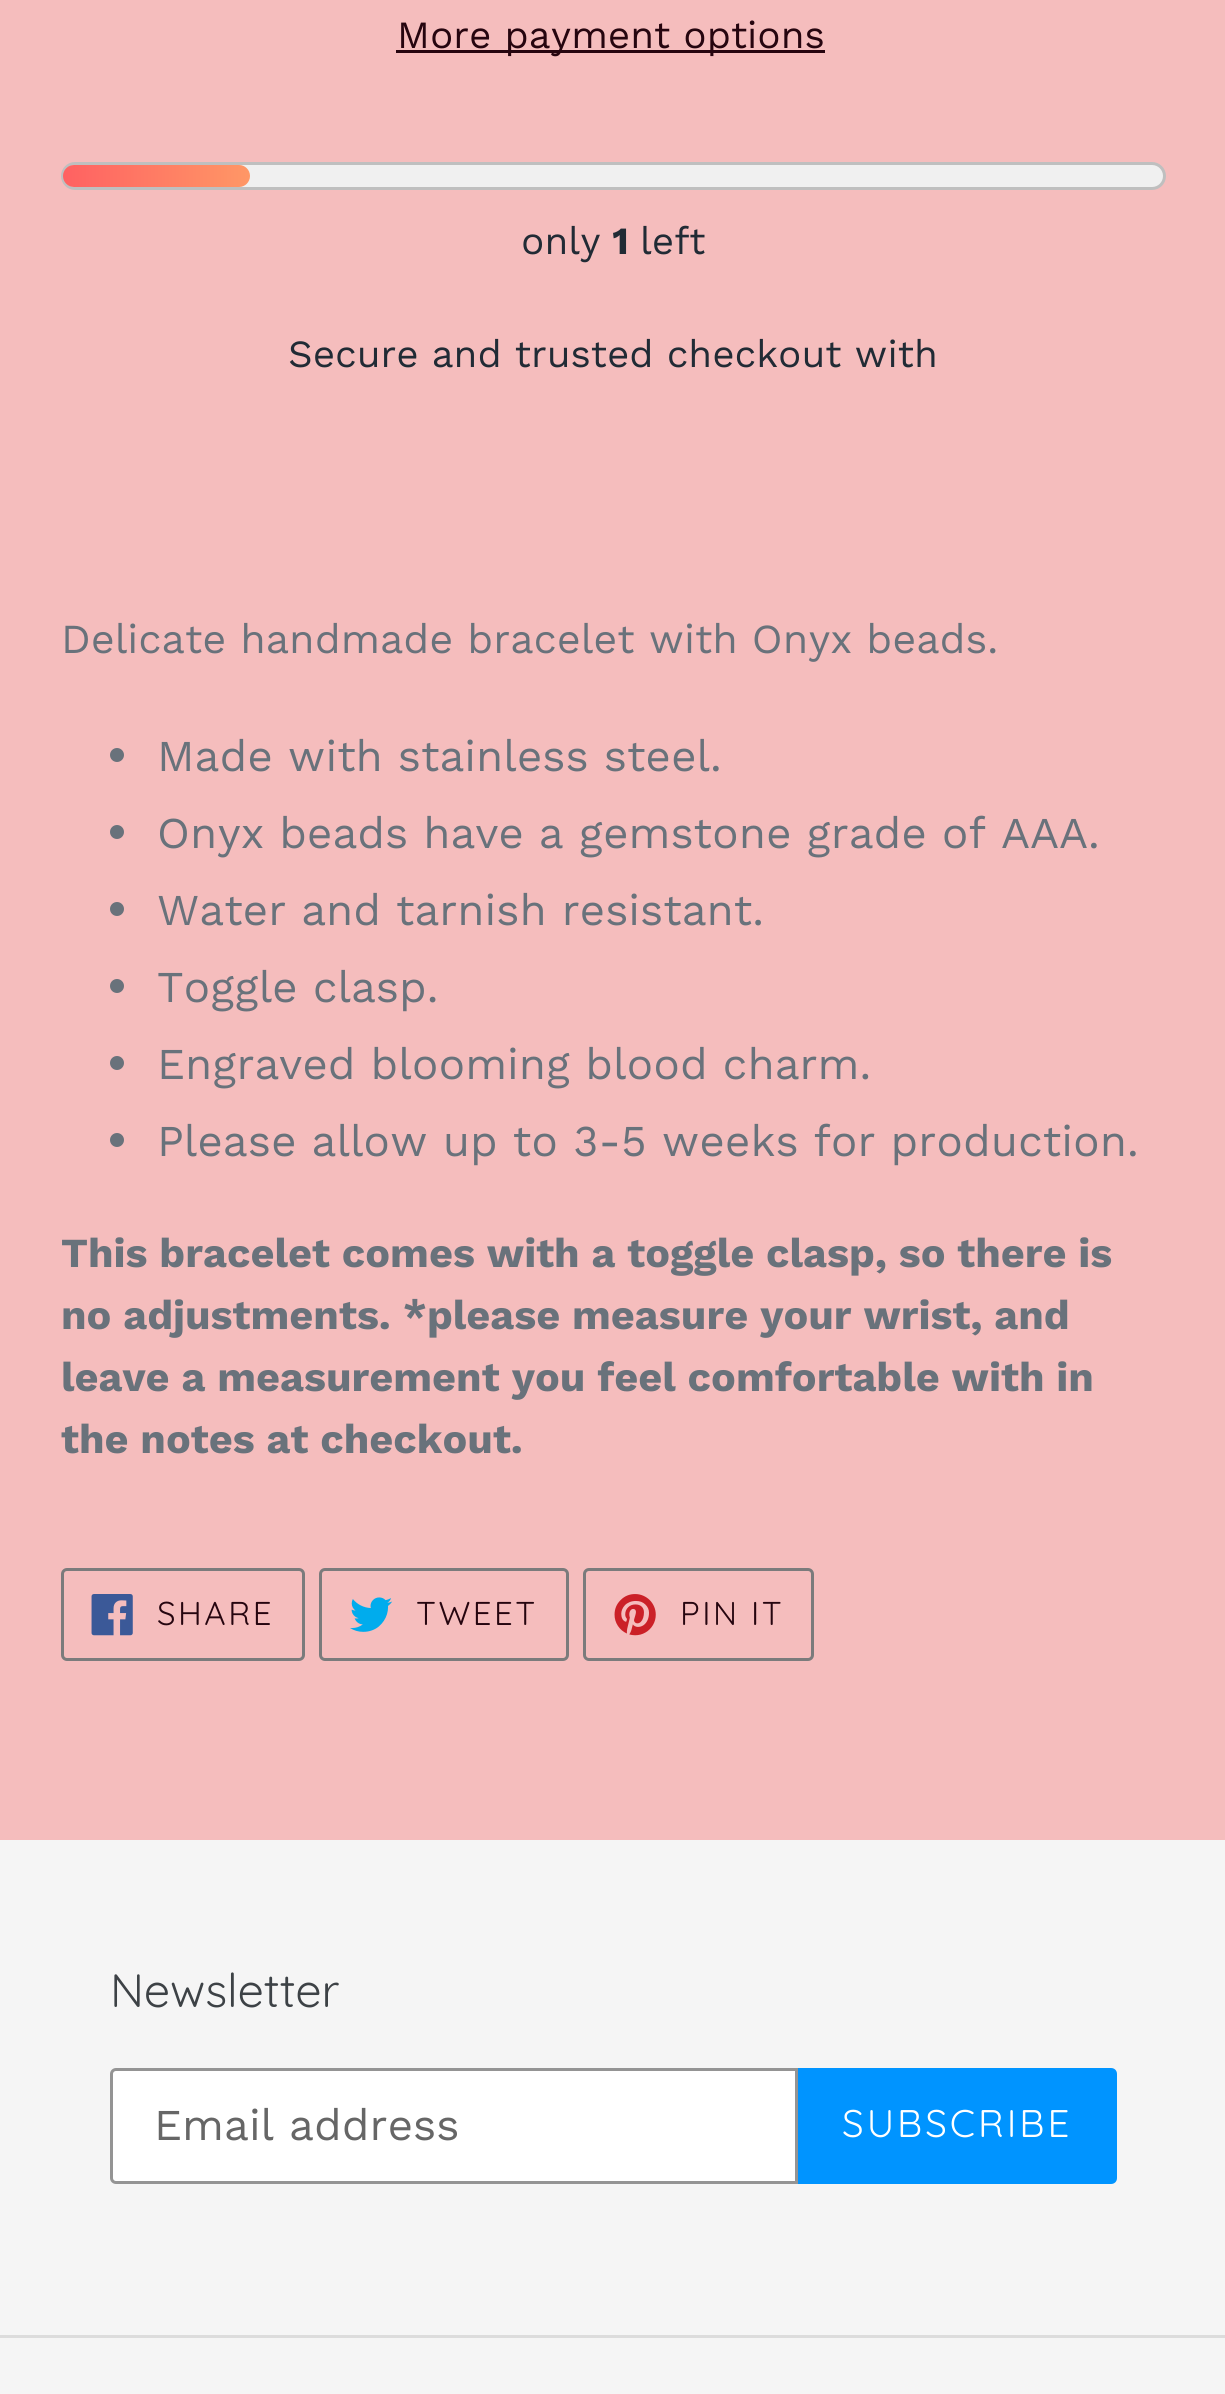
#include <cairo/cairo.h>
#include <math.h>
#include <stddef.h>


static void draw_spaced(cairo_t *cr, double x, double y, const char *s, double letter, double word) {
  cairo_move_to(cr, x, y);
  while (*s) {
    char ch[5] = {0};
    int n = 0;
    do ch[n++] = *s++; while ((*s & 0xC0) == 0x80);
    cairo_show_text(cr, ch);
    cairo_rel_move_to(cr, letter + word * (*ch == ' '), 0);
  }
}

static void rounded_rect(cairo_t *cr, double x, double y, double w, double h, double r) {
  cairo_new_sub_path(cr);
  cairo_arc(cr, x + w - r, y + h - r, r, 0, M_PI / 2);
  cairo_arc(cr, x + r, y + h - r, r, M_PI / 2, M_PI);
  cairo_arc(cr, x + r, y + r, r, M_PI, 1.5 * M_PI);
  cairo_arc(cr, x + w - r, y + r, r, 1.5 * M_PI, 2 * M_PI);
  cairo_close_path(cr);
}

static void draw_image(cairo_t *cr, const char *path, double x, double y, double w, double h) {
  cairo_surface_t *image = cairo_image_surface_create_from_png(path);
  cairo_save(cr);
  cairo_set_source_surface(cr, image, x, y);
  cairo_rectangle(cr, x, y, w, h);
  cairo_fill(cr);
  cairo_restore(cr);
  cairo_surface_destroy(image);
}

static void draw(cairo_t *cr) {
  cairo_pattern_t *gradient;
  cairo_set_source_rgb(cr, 245 / 255.0, 189 / 255.0, 189 / 255.0);
  cairo_paint(cr);
  cairo_set_source_rgb(cr, 38 / 255.0, 5 / 255.0, 15 / 255.0);
  cairo_rectangle(cr, 396, 50, 429, 3);
  cairo_fill(cr);
  cairo_set_source_rgb(cr, 240 / 255.0, 240 / 255.0, 240 / 255.0);
  rounded_rect(cr, 62.5, 163.5, 1102, 25, 12.5);
  cairo_fill_preserve(cr);
  cairo_set_source_rgb(cr, 191 / 255.0, 191 / 255.0, 191 / 255.0);
  cairo_set_line_width(cr, 3);
  cairo_stroke(cr);
  gradient = cairo_pattern_create_linear(63, 176, 250, 176);
  cairo_pattern_add_color_stop_rgba(gradient, 0, 1, 97 / 255.0, 98 / 255.0, 1);
  cairo_pattern_add_color_stop_rgba(gradient, 1, 1, 151 / 255.0, 102 / 255.0, 1);
  cairo_set_source(cr, gradient);
  cairo_pattern_destroy(gradient);
  rounded_rect(cr, 63, 165, 187, 22, 11);
  cairo_fill(cr);
  cairo_set_source_rgb(cr, 105 / 255.0, 114 / 255.0, 123 / 255.0);
  cairo_arc(cr, 117, 755, 7, 0, 2 * M_PI);
  cairo_fill(cr);
  cairo_arc(cr, 117, 832, 7, 0, 2 * M_PI);
  cairo_fill(cr);
  cairo_arc(cr, 117, 909, 7, 0, 2 * M_PI);
  cairo_fill(cr);
  cairo_arc(cr, 117, 986, 7, 0, 2 * M_PI);
  cairo_fill(cr);
  cairo_arc(cr, 117, 1063, 7, 0, 2 * M_PI);
  cairo_fill(cr);
  cairo_arc(cr, 117, 1140, 7, 0, 2 * M_PI);
  cairo_fill(cr);
  rounded_rect(cr, 62.5, 1569.5, 241, 90, 4.5);
  cairo_set_source_rgb(cr, 123 / 255.0, 123 / 255.0, 124 / 255.0);
  cairo_stroke(cr);
  draw_image(cr, "images/1.png", 91, 1594, 42, 42);
  rounded_rect(cr, 320.5, 1569.5, 247, 90, 4.5);
  cairo_stroke(cr);
  draw_image(cr, "images/2.png", 350, 1597, 43, 35);
  rounded_rect(cr, 584.5, 1569.5, 228, 90, 4.5);
  cairo_stroke(cr);
  draw_image(cr, "images/3.png", 614, 1594, 42, 42);
  cairo_set_source_rgb(cr, 245 / 255.0, 245 / 255.0, 245 / 255.0);
  cairo_rectangle(cr, 0, 1840, 1225, 554);
  cairo_fill(cr);
  cairo_set_source_rgb(cr, 1, 1, 1);
  cairo_new_path(cr);
  cairo_move_to(cr, 116, 2069.5);
  cairo_line_to(cr, 796.5, 2069.5);
  cairo_line_to(cr, 796.5, 2182.5);
  cairo_line_to(cr, 116, 2182.5);
  cairo_curve_to(cr, 113.5, 2182.5, 111.5, 2180.5, 111.5, 2178);
  cairo_line_to(cr, 111.5, 2074);
  cairo_curve_to(cr, 111.5, 2071.5, 113.5, 2069.5, 116, 2069.5);
  cairo_close_path(cr);
  cairo_fill_preserve(cr);
  cairo_set_source_rgb(cr, 148 / 255.0, 148 / 255.0, 148 / 255.0);
  cairo_stroke(cr);
  cairo_set_source_rgb(cr, 0, 148 / 255.0, 1);
  cairo_new_path(cr);
  cairo_move_to(cr, 798, 2068);
  cairo_line_to(cr, 1111, 2068);
  cairo_curve_to(cr, 1114.5, 2068, 1117, 2070.5, 1117, 2074);
  cairo_line_to(cr, 1117, 2178);
  cairo_curve_to(cr, 1117, 2181.5, 1114.5, 2184, 1111, 2184);
  cairo_line_to(cr, 798, 2184);
  cairo_close_path(cr);
  cairo_fill(cr);
  cairo_set_source_rgb(cr, 220 / 255.0, 220 / 255.0, 220 / 255.0);
  cairo_rectangle(cr, 0, 2335, 1225, 3);
  cairo_fill(cr);
  cairo_select_font_face(cr, "Work Sans", CAIRO_FONT_SLANT_NORMAL, CAIRO_FONT_WEIGHT_NORMAL);
  cairo_set_font_size(cr, 38.5);
  cairo_set_source_rgb(cr, 38 / 255.0, 5 / 255.0, 15 / 255.0);
  cairo_move_to(cr, 397, 48);
  cairo_show_text(cr, "More payment options");
  cairo_set_source_rgb(cr, 33 / 255.0, 43 / 255.0, 53 / 255.0);
  cairo_move_to(cr, 521, 254);
  cairo_show_text(cr, "only");
  cairo_select_font_face(cr, "Work Sans", CAIRO_FONT_SLANT_NORMAL, CAIRO_FONT_WEIGHT_BOLD);
  cairo_move_to(cr, 612, 254);
  cairo_show_text(cr, "1");
  cairo_select_font_face(cr, "Work Sans", CAIRO_FONT_SLANT_NORMAL, CAIRO_FONT_WEIGHT_NORMAL);
  cairo_move_to(cr, 640, 254);
  cairo_show_text(cr, "left");
  cairo_move_to(cr, 288, 367);
  cairo_show_text(cr, "Secure and trusted checkout with");
  cairo_set_font_size(cr, 41.25);
  cairo_set_source_rgb(cr, 105 / 255.0, 114 / 255.0, 123 / 255.0);
  cairo_move_to(cr, 61, 653);
  cairo_show_text(cr, "Delicate handmade bracelet with Onyx beads.");
  cairo_set_font_size(cr, 44);
  cairo_move_to(cr, 157, 771);
  cairo_show_text(cr, "Made with stainless steel.");
  cairo_move_to(cr, 157, 848);
  cairo_show_text(cr, "Onyx beads have a gemstone grade of AAA.");
  cairo_move_to(cr, 157, 925);
  cairo_show_text(cr, "Water and tarnish resistant.");
  cairo_move_to(cr, 157, 1002);
  cairo_show_text(cr, "Toggle clasp.");
  cairo_move_to(cr, 157, 1079);
  cairo_show_text(cr, "Engraved blooming blood charm.");
  cairo_move_to(cr, 157, 1156);
  cairo_show_text(cr, "Please allow up to 3-5 weeks for production.");
  cairo_select_font_face(cr, "Work Sans", CAIRO_FONT_SLANT_NORMAL, CAIRO_FONT_WEIGHT_BOLD);
  cairo_set_font_size(cr, 41.25);
  cairo_move_to(cr, 61, 1267);
  cairo_show_text(cr, "This bracelet comes with a toggle clasp, so there is");
  cairo_move_to(cr, 61, 1329);
  cairo_show_text(cr, "no adjustments. *please measure your wrist, and");
  cairo_move_to(cr, 61, 1391);
  cairo_show_text(cr, "leave a measurement you feel comfortable with in");
  cairo_move_to(cr, 61, 1453);
  cairo_show_text(cr, "the notes at checkout.");
  cairo_select_font_face(cr, "Quicksand", CAIRO_FONT_SLANT_NORMAL, CAIRO_FONT_WEIGHT_NORMAL);
  cairo_set_font_size(cr, 33);
  cairo_set_source_rgb(cr, 38 / 255.0, 5 / 255.0, 15 / 255.0);
  draw_spaced(cr, 157, 1625, "SHARE", 2.5, 0);
  draw_spaced(cr, 416, 1625, "TWEET", 2.5, 0);
  draw_spaced(cr, 680, 1625, "PIN IT", 2.5, 0);
  cairo_set_font_size(cr, 46.75);
  cairo_set_source_rgb(cr, 61 / 255.0, 66 / 255.0, 70 / 255.0);
  cairo_move_to(cr, 110, 2007);
  cairo_show_text(cr, "Newsletter");
  cairo_select_font_face(cr, "Work Sans", CAIRO_FONT_SLANT_NORMAL, CAIRO_FONT_WEIGHT_NORMAL);
  cairo_set_font_size(cr, 44);
  cairo_set_source_rgb(cr, 102 / 255.0, 102 / 255.0, 102 / 255.0);
  cairo_move_to(cr, 154, 2140);
  cairo_show_text(cr, "Email address");
  cairo_select_font_face(cr, "Quicksand", CAIRO_FONT_SLANT_NORMAL, CAIRO_FONT_WEIGHT_NORMAL);
  cairo_set_font_size(cr, 38.5);
  cairo_set_source_rgb(cr, 1, 1, 1);
  draw_spaced(cr, 842, 2137, "SUBSCRIBE", 3, 0);
}

int main(void) {
  cairo_surface_t *surface = cairo_image_surface_create(CAIRO_FORMAT_RGB24, 1225, 2394);
  cairo_t *cr = cairo_create(surface);
  cairo_font_options_t *options = cairo_font_options_create();
  cairo_font_options_set_hint_metrics(options, CAIRO_HINT_METRICS_OFF);
  cairo_font_options_set_hint_style(options, CAIRO_HINT_STYLE_NONE);
  cairo_set_font_options(cr, options);
  cairo_set_miter_limit(cr, 4);
  draw(cr);
  cairo_surface_write_to_png(surface, "out.png");
  cairo_font_options_destroy(options);
  cairo_destroy(cr);
  cairo_surface_destroy(surface);
  return 0;
}
